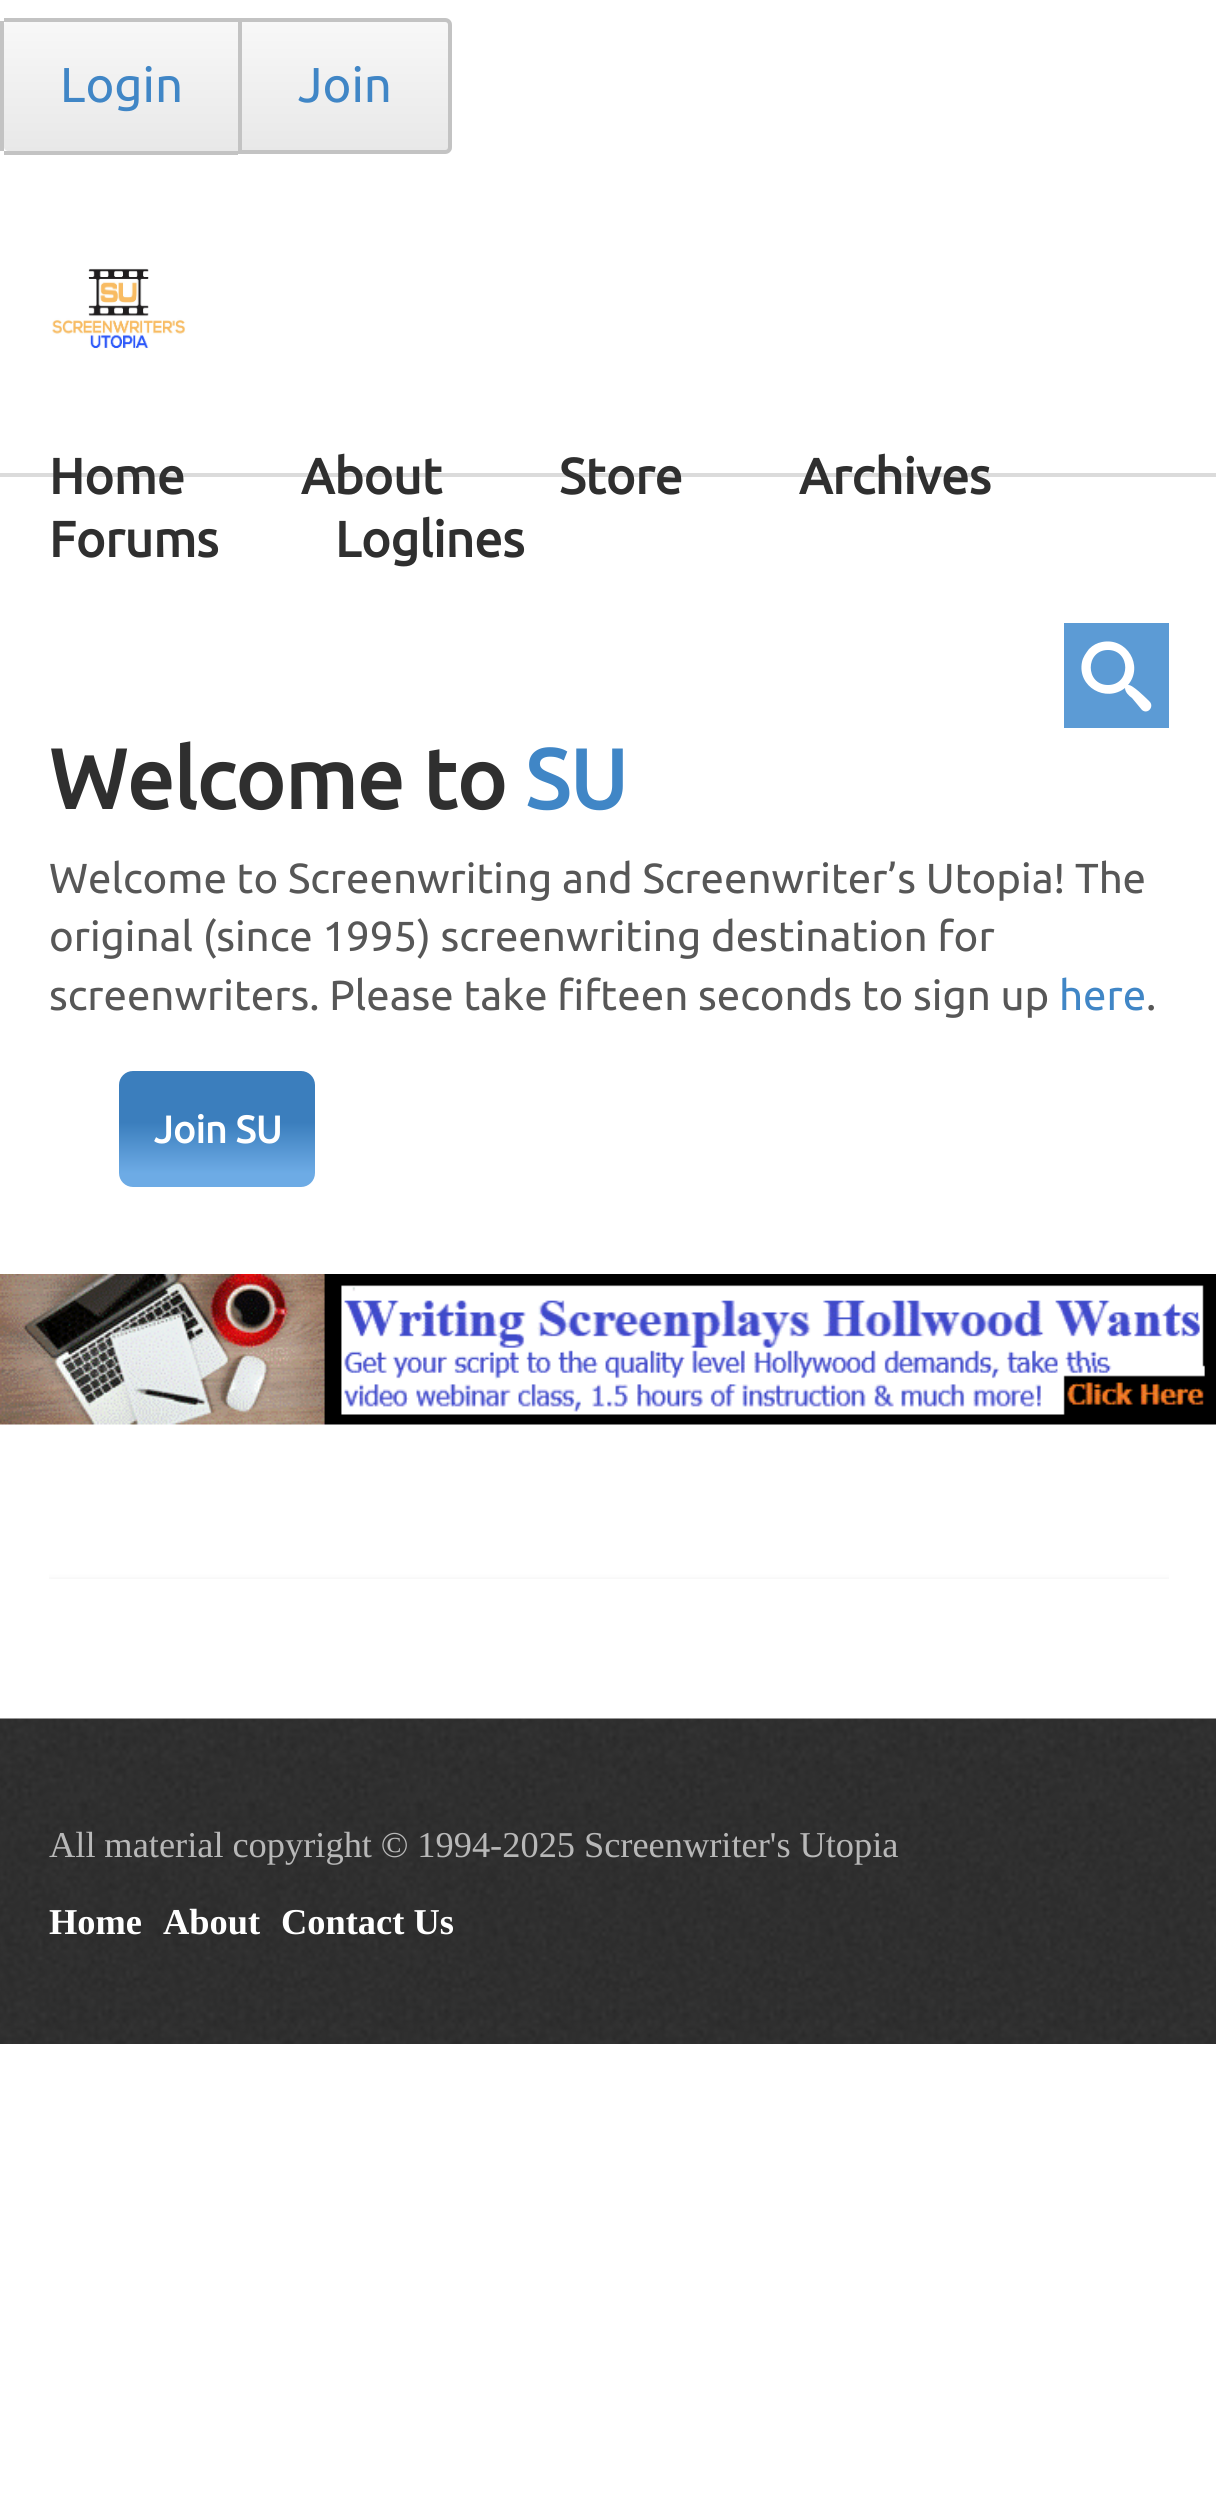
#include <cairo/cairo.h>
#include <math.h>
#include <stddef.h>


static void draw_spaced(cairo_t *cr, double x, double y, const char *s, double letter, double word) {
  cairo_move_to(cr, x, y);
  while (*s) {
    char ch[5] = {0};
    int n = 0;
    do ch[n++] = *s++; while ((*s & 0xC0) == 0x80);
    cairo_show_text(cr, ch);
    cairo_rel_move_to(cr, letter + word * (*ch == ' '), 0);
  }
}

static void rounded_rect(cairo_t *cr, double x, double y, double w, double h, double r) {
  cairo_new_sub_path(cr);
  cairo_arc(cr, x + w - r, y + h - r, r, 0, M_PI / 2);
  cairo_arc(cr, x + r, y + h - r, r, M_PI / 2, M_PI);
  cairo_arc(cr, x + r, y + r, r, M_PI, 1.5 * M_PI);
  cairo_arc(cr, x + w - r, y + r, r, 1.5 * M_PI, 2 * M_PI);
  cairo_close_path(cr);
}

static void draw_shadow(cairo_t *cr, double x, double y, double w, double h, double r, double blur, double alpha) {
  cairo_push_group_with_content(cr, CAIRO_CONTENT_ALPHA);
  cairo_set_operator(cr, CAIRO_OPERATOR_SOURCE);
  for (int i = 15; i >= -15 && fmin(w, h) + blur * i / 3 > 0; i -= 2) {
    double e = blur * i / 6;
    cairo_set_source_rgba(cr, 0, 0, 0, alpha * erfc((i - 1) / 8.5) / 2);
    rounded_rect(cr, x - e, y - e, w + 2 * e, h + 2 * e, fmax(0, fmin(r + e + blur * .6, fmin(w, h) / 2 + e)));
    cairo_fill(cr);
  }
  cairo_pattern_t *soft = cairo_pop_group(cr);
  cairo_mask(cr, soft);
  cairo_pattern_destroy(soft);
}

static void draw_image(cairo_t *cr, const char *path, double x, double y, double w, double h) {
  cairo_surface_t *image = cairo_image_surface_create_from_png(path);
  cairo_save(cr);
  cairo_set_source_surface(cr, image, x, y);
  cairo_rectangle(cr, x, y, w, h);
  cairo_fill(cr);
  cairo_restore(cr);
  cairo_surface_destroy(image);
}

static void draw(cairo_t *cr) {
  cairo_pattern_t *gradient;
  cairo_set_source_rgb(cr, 1, 1, 1);
  cairo_paint(cr);
  cairo_set_source_rgb(cr, 219 / 255.0, 219 / 255.0, 219 / 255.0);
  cairo_rectangle(cr, 0, 473, 1216, 4);
  cairo_fill(cr);
  gradient = cairo_pattern_create_linear(121, 21, 121, 151);
  cairo_pattern_add_color_stop_rgba(gradient, 0, 248 / 255.0, 248 / 255.0, 248 / 255.0, 1);
  cairo_pattern_add_color_stop_rgba(gradient, 1, 232 / 255.0, 232 / 255.0, 232 / 255.0, 1);
  cairo_set_source(cr, gradient);
  cairo_pattern_destroy(gradient);
  cairo_new_path(cr);
  cairo_move_to(cr, 8, 21);
  cairo_line_to(cr, 238, 21);
  cairo_line_to(cr, 238, 151);
  cairo_line_to(cr, 8, 151);
  cairo_curve_to(cr, 6, 151, 4, 149, 4, 147);
  cairo_line_to(cr, 4, 25);
  cairo_curve_to(cr, 4, 23, 6, 21, 8, 21);
  cairo_close_path(cr);
  cairo_fill(cr);
  cairo_set_source_rgb(cr, 195 / 255.0, 195 / 255.0, 195 / 255.0);
  cairo_rectangle(cr, 4, 18, 234, 4);
  cairo_fill(cr);
  cairo_rectangle(cr, 4, 151, 234, 4);
  cairo_fill(cr);
  cairo_rectangle(cr, 0, 21, 4, 130);
  cairo_fill(cr);
  cairo_save(cr);
  cairo_new_path(cr);
  cairo_move_to(cr, 238, 18);
  cairo_line_to(cr, 445, 18);
  cairo_curve_to(cr, 449, 18, 452, 21, 452, 25);
  cairo_line_to(cr, 452, 147);
  cairo_curve_to(cr, 452, 151, 449, 154, 445, 154);
  cairo_line_to(cr, 238, 154);
  cairo_close_path(cr);
  cairo_clip(cr);
  gradient = cairo_pattern_create_linear(345, 21, 345, 151);
  cairo_pattern_add_color_stop_rgba(gradient, 0, 248 / 255.0, 248 / 255.0, 248 / 255.0, 1);
  cairo_pattern_add_color_stop_rgba(gradient, 1, 232 / 255.0, 232 / 255.0, 232 / 255.0, 1);
  cairo_set_source(cr, gradient);
  cairo_pattern_destroy(gradient);
  cairo_rectangle(cr, 242, 21, 210, 130);
  cairo_fill(cr);
  cairo_restore(cr);
  cairo_new_path(cr);
  cairo_move_to(cr, 240, 20);
  cairo_line_to(cr, 445, 20);
  cairo_curve_to(cr, 448, 20, 450, 22, 450, 25);
  cairo_line_to(cr, 450, 147);
  cairo_curve_to(cr, 450, 150, 448, 152, 445, 152);
  cairo_line_to(cr, 240, 152);
  cairo_close_path(cr);
  cairo_set_line_width(cr, 4);
  cairo_stroke(cr);
  draw_image(cr, "images/1.png", 52, 268, 134, 81);
  cairo_set_source_rgb(cr, 92 / 255.0, 155 / 255.0, 213 / 255.0);
  cairo_rectangle(cr, 1064, 623, 105, 105);
  cairo_fill(cr);
  cairo_set_source_rgb(cr, 1, 1, 1);
  cairo_new_path(cr);
  cairo_move_to(cr, 1149, 701);
  cairo_curve_to(cr, 1155, 706, 1148, 715, 1142, 710);
  cairo_line_to(cr, 1132, 698);
  cairo_curve_to(cr, 1129, 696, 1125, 692, 1125, 688);
  cairo_curve_to(cr, 1106, 703, 1077, 687, 1082, 662);
  cairo_curve_to(cr, 1083, 657, 1086, 653, 1089, 649);
  cairo_curve_to(cr, 1093, 645, 1097, 643, 1102, 642);
  cairo_curve_to(cr, 1127, 637, 1144, 666, 1128, 685);
  cairo_curve_to(cr, 1132, 684, 1146, 698, 1149, 701);
  cairo_close_path(cr);
  cairo_move_to(cr, 1108, 685);
  cairo_curve_to(cr, 1131, 685, 1131, 650, 1108, 650);
  cairo_curve_to(cr, 1085, 650, 1085, 685, 1108, 685);
  cairo_close_path(cr);
  cairo_fill(cr);
  gradient = cairo_pattern_create_linear(119, 1187, 119, 1071);
  cairo_pattern_add_color_stop_rgba(gradient, 0.12, 109 / 255.0, 171 / 255.0, 229 / 255.0, 1);
  cairo_pattern_add_color_stop_rgba(gradient, 0.56, 59 / 255.0, 126 / 255.0, 189 / 255.0, 1);
  cairo_set_source(cr, gradient);
  cairo_pattern_destroy(gradient);
  rounded_rect(cr, 119, 1071, 196, 116, 14);
  cairo_fill(cr);
  draw_image(cr, "images/2.png", 0, 1274, 1216, 151);
  cairo_save(cr);
  cairo_rectangle(cr, 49, 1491, 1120, 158);
  cairo_clip(cr);
  cairo_set_fill_rule(cr, CAIRO_FILL_RULE_EVEN_ODD);
  cairo_new_path(cr);
  cairo_move_to(cr, 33, 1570);
  cairo_line_to(cr, 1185, 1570);
  cairo_line_to(cr, 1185, 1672);
  cairo_line_to(cr, 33, 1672);
  cairo_close_path(cr);
  cairo_move_to(cr, 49, 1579);
  cairo_line_to(cr, 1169, 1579);
  cairo_line_to(cr, 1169, 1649);
  cairo_line_to(cr, 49, 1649);
  cairo_close_path(cr);
  cairo_clip(cr);
  cairo_set_source_rgb(cr, 153 / 255.0, 153 / 255.0, 153 / 255.0);
  draw_shadow(cr, 49, 1586, 1120, 70, 0, 5, 1);
  cairo_restore(cr);
  draw_image(cr, "images/3.png", 0, 1718, 1216, 326);
  cairo_select_font_face(cr, "Ubuntu", CAIRO_FONT_SLANT_NORMAL, CAIRO_FONT_WEIGHT_NORMAL);
  cairo_set_font_size(cr, 49);
  cairo_set_source_rgb(cr, 64 / 255.0, 134 / 255.0, 198 / 255.0);
  cairo_move_to(cr, 60, 102);
  cairo_show_text(cr, "Login");
  cairo_move_to(cr, 298, 102);
  cairo_show_text(cr, "Join");
  cairo_select_font_face(cr, "Ubuntu", CAIRO_FONT_SLANT_NORMAL, CAIRO_FONT_WEIGHT_BOLD);
  cairo_set_font_size(cr, 50);
  cairo_set_source_rgb(cr, 47 / 255.0, 47 / 255.0, 47 / 255.0);
  cairo_move_to(cr, 49, 494);
  cairo_show_text(cr, "Home");
  cairo_move_to(cr, 301, 494);
  cairo_show_text(cr, "About");
  cairo_move_to(cr, 559, 494);
  cairo_show_text(cr, "Store");
  cairo_move_to(cr, 799, 494);
  cairo_show_text(cr, "Archives");
  cairo_move_to(cr, 49, 557);
  cairo_show_text(cr, "Forums");
  cairo_move_to(cr, 335, 557);
  cairo_show_text(cr, "Loglines");
  cairo_set_font_size(cr, 83.75);
  cairo_move_to(cr, 49, 809);
  cairo_show_text(cr, "Welcome to");
  cairo_set_source_rgb(cr, 64 / 255.0, 134 / 255.0, 198 / 255.0);
  cairo_move_to(cr, 525, 809);
  cairo_show_text(cr, "SU");
  cairo_select_font_face(cr, "Ubuntu", CAIRO_FONT_SLANT_NORMAL, CAIRO_FONT_WEIGHT_NORMAL);
  cairo_set_font_size(cr, 42);
  cairo_set_source_rgb(cr, 87 / 255.0, 87 / 255.0, 87 / 255.0);
  cairo_move_to(cr, 49, 893);
  cairo_show_text(cr, "Welcome to Screenwriting and Screenwriter’s Utopia! The");
  cairo_move_to(cr, 49, 951);
  cairo_show_text(cr, "original (since 1995) screenwriting destination for");
  cairo_move_to(cr, 49, 1010);
  cairo_show_text(cr, "screenwriters. Please take fifteen seconds to sign up");
  cairo_set_source_rgb(cr, 64 / 255.0, 134 / 255.0, 198 / 255.0);
  cairo_move_to(cr, 1059, 1010);
  cairo_show_text(cr, "here");
  cairo_set_source_rgb(cr, 87 / 255.0, 87 / 255.0, 87 / 255.0);
  cairo_move_to(cr, 1146, 1010);
  cairo_show_text(cr, ".");
  cairo_select_font_face(cr, "Ubuntu", CAIRO_FONT_SLANT_NORMAL, CAIRO_FONT_WEIGHT_BOLD);
  cairo_set_font_size(cr, 38);
  cairo_set_source_rgb(cr, 1, 1, 1);
  cairo_move_to(cr, 154, 1143);
  cairo_show_text(cr, "Join SU");
  cairo_select_font_face(cr, "Liberation Serif", CAIRO_FONT_SLANT_NORMAL, CAIRO_FONT_WEIGHT_NORMAL);
  cairo_set_font_size(cr, 36.4);
  cairo_set_source_rgb(cr, 184 / 255.0, 184 / 255.0, 184 / 255.0);
  draw_spaced(cr, 49, 1857, "All material copyright © 1994-2025 Screenwriter's Utopia", 0, -0.25);
  cairo_select_font_face(cr, "Liberation Serif", CAIRO_FONT_SLANT_NORMAL, CAIRO_FONT_WEIGHT_BOLD);
  cairo_set_source_rgb(cr, 1, 1, 1);
  cairo_move_to(cr, 49, 1934);
  cairo_show_text(cr, "Home");
  cairo_move_to(cr, 163, 1934);
  cairo_show_text(cr, "About");
  cairo_move_to(cr, 281, 1934);
  cairo_show_text(cr, "Contact Us");
}

int main(void) {
  cairo_surface_t *surface = cairo_image_surface_create(CAIRO_FORMAT_RGB24, 1216, 2508);
  cairo_t *cr = cairo_create(surface);
  cairo_font_options_t *options = cairo_font_options_create();
  cairo_font_options_set_hint_metrics(options, CAIRO_HINT_METRICS_OFF);
  cairo_font_options_set_hint_style(options, CAIRO_HINT_STYLE_NONE);
  cairo_set_font_options(cr, options);
  cairo_set_miter_limit(cr, 4);
  draw(cr);
  cairo_surface_write_to_png(surface, "out.png");
  cairo_font_options_destroy(options);
  cairo_destroy(cr);
  cairo_surface_destroy(surface);
  return 0;
}
